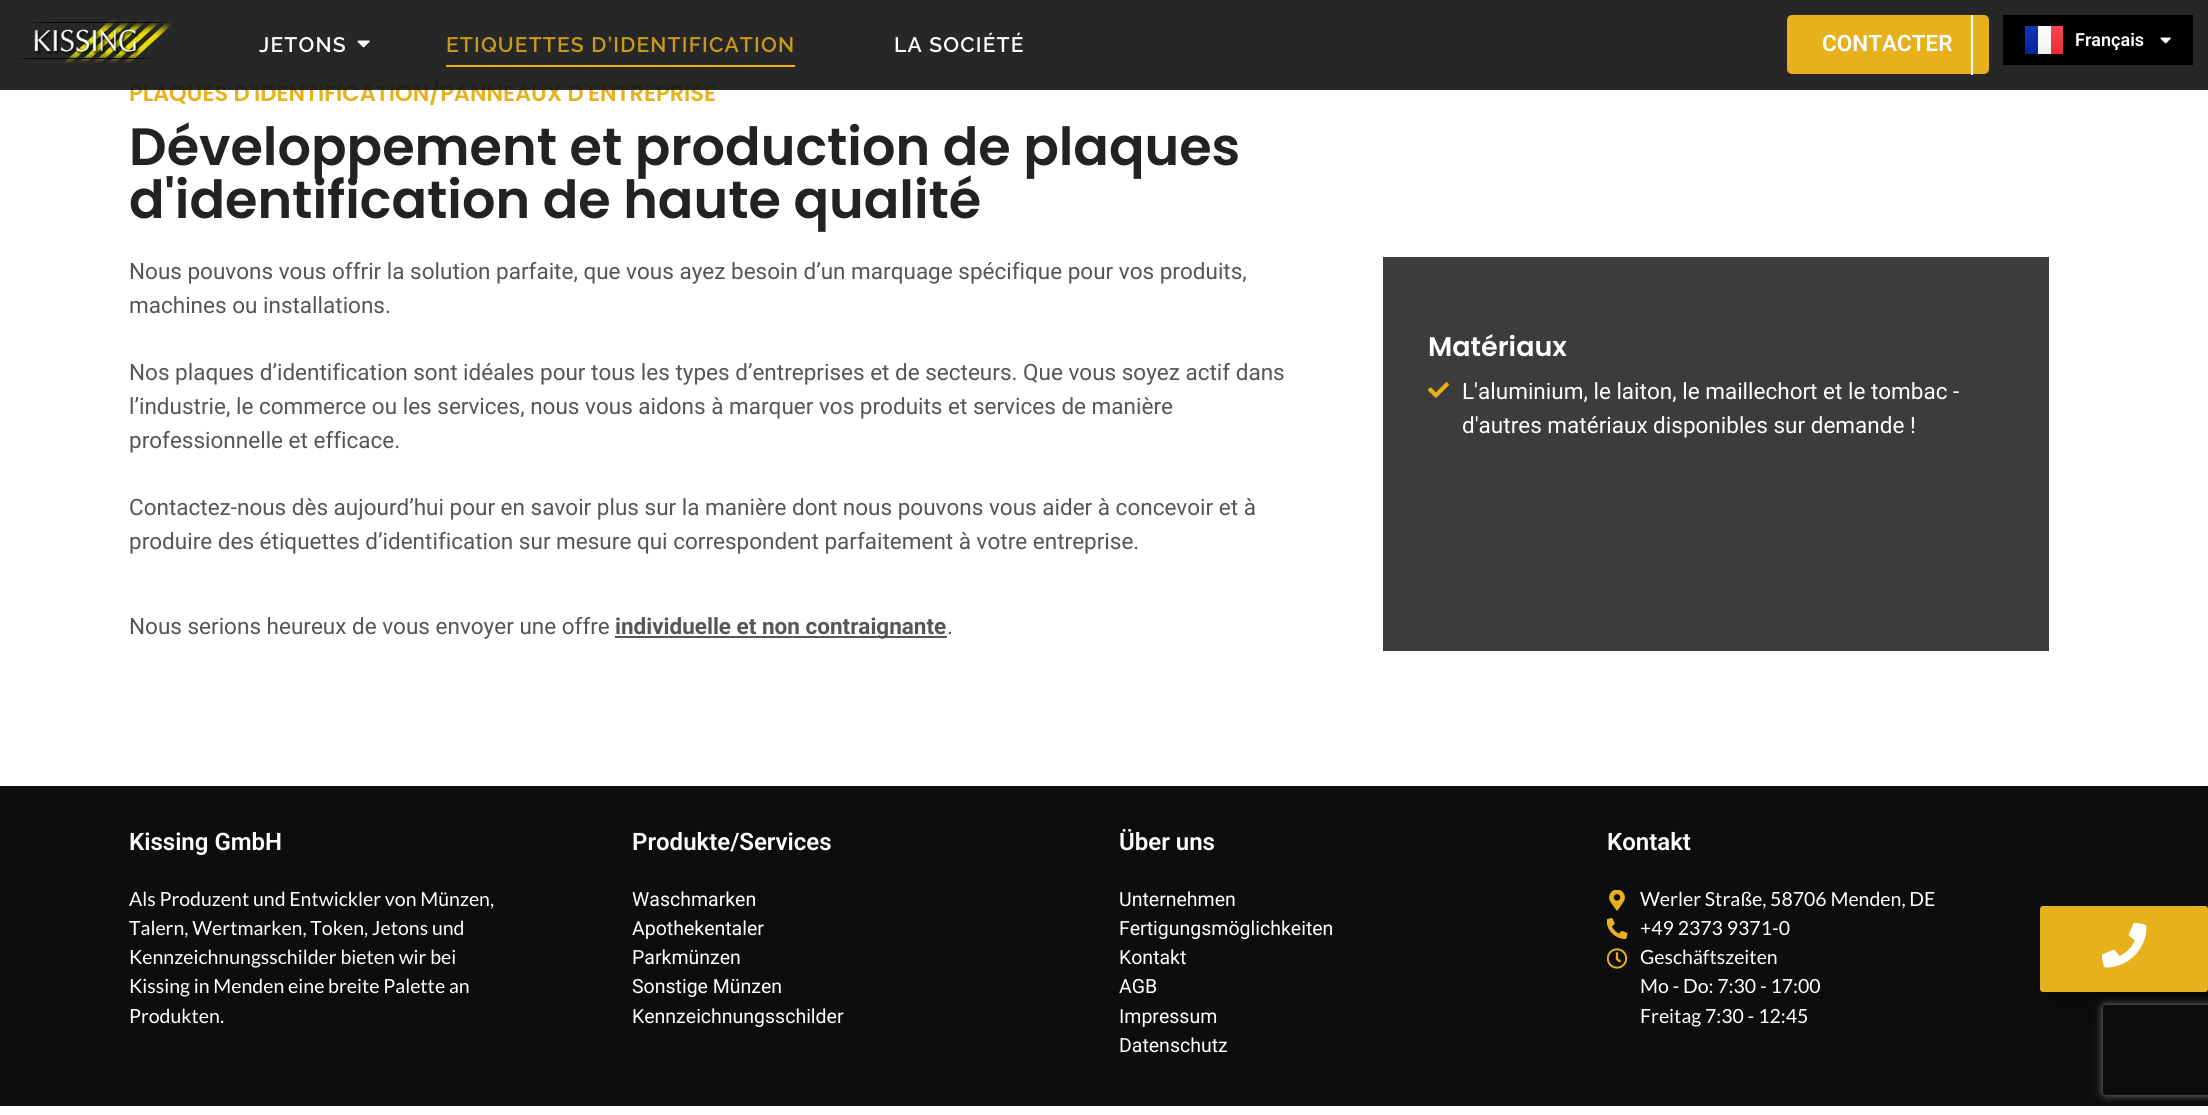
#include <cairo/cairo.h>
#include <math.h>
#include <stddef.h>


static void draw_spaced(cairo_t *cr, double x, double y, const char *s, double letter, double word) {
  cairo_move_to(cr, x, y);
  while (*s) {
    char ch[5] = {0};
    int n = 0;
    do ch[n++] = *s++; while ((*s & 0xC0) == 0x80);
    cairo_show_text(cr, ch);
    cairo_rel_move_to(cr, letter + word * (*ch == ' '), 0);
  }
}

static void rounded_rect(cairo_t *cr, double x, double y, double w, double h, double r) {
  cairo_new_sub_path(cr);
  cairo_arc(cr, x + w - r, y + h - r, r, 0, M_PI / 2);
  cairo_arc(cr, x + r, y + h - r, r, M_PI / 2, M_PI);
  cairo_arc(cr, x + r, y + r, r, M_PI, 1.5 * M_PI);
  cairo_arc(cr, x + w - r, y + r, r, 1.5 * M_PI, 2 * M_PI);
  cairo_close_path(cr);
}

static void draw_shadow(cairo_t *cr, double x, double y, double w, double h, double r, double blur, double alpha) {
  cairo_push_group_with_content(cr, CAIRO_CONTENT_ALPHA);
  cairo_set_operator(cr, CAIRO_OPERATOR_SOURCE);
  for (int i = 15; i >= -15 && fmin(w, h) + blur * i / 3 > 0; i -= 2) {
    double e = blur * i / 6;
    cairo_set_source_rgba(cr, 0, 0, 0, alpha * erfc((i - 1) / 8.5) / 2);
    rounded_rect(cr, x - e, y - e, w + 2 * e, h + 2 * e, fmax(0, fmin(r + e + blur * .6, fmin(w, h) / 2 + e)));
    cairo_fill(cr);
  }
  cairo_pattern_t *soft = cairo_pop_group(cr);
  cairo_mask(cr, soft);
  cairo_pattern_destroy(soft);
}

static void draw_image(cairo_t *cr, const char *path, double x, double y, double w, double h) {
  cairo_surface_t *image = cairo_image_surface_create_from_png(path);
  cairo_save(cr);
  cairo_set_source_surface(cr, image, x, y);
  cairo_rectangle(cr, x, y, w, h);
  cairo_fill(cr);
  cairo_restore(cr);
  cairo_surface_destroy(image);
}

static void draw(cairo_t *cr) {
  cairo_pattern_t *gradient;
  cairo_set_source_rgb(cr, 1, 1, 1);
  cairo_paint(cr);
  cairo_set_source_rgb(cr, 85 / 255.0, 85 / 255.0, 85 / 255.0);
  cairo_rectangle(cr, 615, 636, 332, 2);
  cairo_fill(cr);
  cairo_set_source_rgb(cr, 60 / 255.0, 60 / 255.0, 59 / 255.0);
  cairo_rectangle(cr, 1383, 257, 666, 394);
  cairo_fill(cr);
  draw_image(cr, "images/4.png", 1428, 382, 21, 16);
  cairo_set_source_rgb(cr, 13 / 255.0, 13 / 255.0, 13 / 255.0);
  cairo_rectangle(cr, 0, 786, 2208, 320);
  cairo_fill(cr);
  draw_image(cr, "images/5.png", 1609, 890, 16, 21);
  draw_image(cr, "images/6.png", 1607, 918, 21, 21);
  draw_image(cr, "images/7.png", 1607, 948, 21, 21);
  cairo_set_source_rgb(cr, 0, 0, 0);
  draw_shadow(cr, 2051, 915, 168, 86, 3, 17, 0.5);
  cairo_set_source_rgb(cr, 231 / 255.0, 177 / 255.0, 29 / 255.0);
  rounded_rect(cr, 2041, 907, 166, 84, 2);
  cairo_fill_preserve(cr);
  cairo_stroke(cr);
  draw_image(cr, "images/8.png", 2102, 923, 45, 45);
  cairo_save(cr);
  cairo_set_fill_rule(cr, CAIRO_FILL_RULE_EVEN_ODD);
  cairo_new_path(cr);
  cairo_move_to(cr, 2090, 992);
  cairo_line_to(cr, 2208, 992);
  cairo_line_to(cr, 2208, 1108);
  cairo_line_to(cr, 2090, 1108);
  cairo_close_path(cr);
  cairo_move_to(cr, 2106, 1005);
  cairo_line_to(cr, 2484, 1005);
  cairo_curve_to(cr, 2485.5, 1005, 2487, 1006.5, 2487, 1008);
  cairo_line_to(cr, 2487, 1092);
  cairo_curve_to(cr, 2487, 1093.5, 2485.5, 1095, 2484, 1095);
  cairo_line_to(cr, 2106, 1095);
  cairo_curve_to(cr, 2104.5, 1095, 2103, 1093.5, 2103, 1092);
  cairo_line_to(cr, 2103, 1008);
  cairo_curve_to(cr, 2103, 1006.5, 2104.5, 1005, 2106, 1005);
  cairo_close_path(cr);
  cairo_clip(cr);
  cairo_set_source_rgb(cr, 128 / 255.0, 128 / 255.0, 128 / 255.0);
  draw_shadow(cr, 2103, 1005, 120, 90, 3, 4, 1);
  cairo_restore(cr);
  cairo_select_font_face(cr, "Poppins SemiBold", CAIRO_FONT_SLANT_NORMAL, CAIRO_FONT_WEIGHT_NORMAL);
  cairo_set_font_size(cr, 22.5);
  cairo_move_to(cr, 129, 101);
  cairo_show_text(cr, "PLAQUES D'IDENTIFICATION/PANNEAUX D'ENTREPRISE");
  cairo_set_source_rgba(cr, 16 / 255.0, 16 / 255.0, 16 / 255.0, 0.9);
  cairo_rectangle(cr, 0, 0, 2208, 90);
  cairo_fill(cr);
  cairo_set_source_rgb(cr, 0, 0, 0);
  cairo_rectangle(cr, 2003, 15, 190, 50);
  cairo_fill(cr);
  draw_image(cr, "images/3.png", 2160, 37, 11, 7);
  cairo_select_font_face(cr, "Roboto SemiBold", CAIRO_FONT_SLANT_NORMAL, CAIRO_FONT_WEIGHT_NORMAL);
  cairo_set_font_size(cr, 18);
  cairo_set_source_rgb(cr, 1, 1, 1);
  cairo_move_to(cr, 2075, 46);
  cairo_show_text(cr, "Français");
  gradient = cairo_pattern_create_linear(2045, 26, 2045, 54);
  cairo_pattern_add_color_stop_rgba(gradient, 0, 1, 1, 1, 1);
  cairo_pattern_add_color_stop_rgba(gradient, 1, 240 / 255.0, 240 / 255.0, 240 / 255.0, 1);
  cairo_set_source(cr, gradient);
  cairo_pattern_destroy(gradient);
  cairo_rectangle(cr, 2038, 26, 13, 28);
  cairo_fill(cr);
  gradient = cairo_pattern_create_linear(2032, 26, 2032, 54);
  cairo_pattern_add_color_stop_rgba(gradient, 0, 16 / 255.0, 53 / 255.0, 187 / 255.0, 1);
  cairo_pattern_add_color_stop_rgba(gradient, 1, 4 / 255.0, 35 / 255.0, 150 / 255.0, 1);
  cairo_set_source(cr, gradient);
  cairo_pattern_destroy(gradient);
  cairo_rectangle(cr, 2025, 26, 13, 28);
  cairo_fill(cr);
  gradient = cairo_pattern_create_linear(2054, 26, 2054, 54);
  cairo_pattern_add_color_stop_rgba(gradient, 0, 244 / 255.0, 70 / 255.0, 83 / 255.0, 1);
  cairo_pattern_add_color_stop_rgba(gradient, 1, 238 / 255.0, 42 / 255.0, 57 / 255.0, 1);
  cairo_set_source(cr, gradient);
  cairo_pattern_destroy(gradient);
  cairo_rectangle(cr, 2051, 26, 12, 28);
  cairo_fill(cr);
  cairo_set_source_rgb(cr, 231 / 255.0, 177 / 255.0, 29 / 255.0);
  rounded_rect(cr, 1787, 15, 202, 59, 5);
  cairo_fill(cr);
  cairo_set_source_rgb(cr, 1, 1, 1);
  cairo_rectangle(cr, 1971, 15, 2, 60);
  cairo_fill(cr);
  cairo_set_font_size(cr, 22.5);
  cairo_move_to(cr, 1822, 51);
  cairo_show_text(cr, "CONTACTER");
  cairo_select_font_face(cr, "Raleway SemiBold", CAIRO_FONT_SLANT_NORMAL, CAIRO_FONT_WEIGHT_NORMAL);
  cairo_set_font_size(cr, 21);
  draw_spaced(cr, 894, 52, "LA SOCIÉTÉ", 1.2, 0);
  cairo_set_source_rgb(cr, 201 / 255.0, 153 / 255.0, 24 / 255.0);
  draw_spaced(cr, 446, 52, "ETIQUETTES D’IDENTIFICATION", 1.2, 0);
  cairo_set_source_rgb(cr, 231 / 255.0, 177 / 255.0, 29 / 255.0);
  cairo_rectangle(cr, 446, 65, 349, 2);
  cairo_fill(cr);
  draw_image(cr, "images/2.png", 357, 40, 13, 8);
  cairo_set_source_rgb(cr, 1, 1, 1);
  draw_spaced(cr, 259, 52, "JETONS", 1.2, 0);
  draw_image(cr, "images/1.png", 17, 18, 156, 45);
  cairo_select_font_face(cr, "Poppins SemiBold", CAIRO_FONT_SLANT_NORMAL, CAIRO_FONT_WEIGHT_NORMAL);
  cairo_set_font_size(cr, 52.5);
  cairo_set_source_rgb(cr, 34 / 255.0, 34 / 255.0, 34 / 255.0);
  cairo_move_to(cr, 129, 165);
  cairo_show_text(cr, "Développement et production de plaques");
  cairo_move_to(cr, 129, 218);
  cairo_show_text(cr, "d'identification de haute qualité");
  cairo_select_font_face(cr, "Roboto", CAIRO_FONT_SLANT_NORMAL, CAIRO_FONT_WEIGHT_NORMAL);
  cairo_set_font_size(cr, 22.5);
  cairo_set_source_rgb(cr, 85 / 255.0, 85 / 255.0, 85 / 255.0);
  cairo_move_to(cr, 129, 279);
  cairo_show_text(cr, "Nous pouvons vous offrir la solution parfaite, que vous ayez besoin d’un marquage spécifique pour vos produits,");
  cairo_move_to(cr, 129, 313);
  cairo_show_text(cr, "machines ou installations.");
  cairo_move_to(cr, 129, 380);
  cairo_show_text(cr, "Nos plaques d’identification sont idéales pour tous les types d’entreprises et de secteurs. Que vous soyez actif dans");
  cairo_move_to(cr, 129, 414);
  cairo_show_text(cr, "l’industrie, le commerce ou les services, nous vous aidons à marquer vos produits et services de manière");
  cairo_move_to(cr, 129, 448);
  cairo_show_text(cr, "professionnelle et efficace.");
  cairo_move_to(cr, 129, 515);
  cairo_show_text(cr, "Contactez-nous dès aujourd’hui pour en savoir plus sur la manière dont nous pouvons vous aider à concevoir et à");
  cairo_move_to(cr, 129, 549);
  cairo_show_text(cr, "produire des étiquettes d’identification sur mesure qui correspondent parfaitement à votre entreprise.");
  cairo_move_to(cr, 129, 634);
  cairo_show_text(cr, "Nous serions heureux de vous envoyer une offre");
  cairo_select_font_face(cr, "Roboto", CAIRO_FONT_SLANT_NORMAL, CAIRO_FONT_WEIGHT_BOLD);
  cairo_move_to(cr, 615, 634);
  cairo_show_text(cr, "individuelle et non contraignante");
  cairo_select_font_face(cr, "Roboto", CAIRO_FONT_SLANT_NORMAL, CAIRO_FONT_WEIGHT_NORMAL);
  cairo_move_to(cr, 947, 634);
  cairo_show_text(cr, ".");
  cairo_select_font_face(cr, "Poppins SemiBold", CAIRO_FONT_SLANT_NORMAL, CAIRO_FONT_WEIGHT_NORMAL);
  cairo_set_font_size(cr, 27);
  cairo_set_source_rgb(cr, 1, 1, 1);
  cairo_move_to(cr, 1428, 356);
  cairo_show_text(cr, "Matériaux");
  cairo_select_font_face(cr, "Roboto", CAIRO_FONT_SLANT_NORMAL, CAIRO_FONT_WEIGHT_NORMAL);
  cairo_set_font_size(cr, 22.5);
  cairo_move_to(cr, 1462, 399);
  cairo_show_text(cr, "L'aluminium, le laiton, le maillechort et le tombac -");
  cairo_move_to(cr, 1462, 433);
  cairo_show_text(cr, "d'autres matériaux disponibles sur demande !");
  cairo_select_font_face(cr, "Roboto SemiBold", CAIRO_FONT_SLANT_NORMAL, CAIRO_FONT_WEIGHT_NORMAL);
  cairo_set_font_size(cr, 24);
  cairo_move_to(cr, 129, 850);
  cairo_show_text(cr, "Kissing GmbH");
  cairo_select_font_face(cr, "Lato", CAIRO_FONT_SLANT_NORMAL, CAIRO_FONT_WEIGHT_NORMAL);
  cairo_set_font_size(cr, 19.5);
  cairo_move_to(cr, 129, 906);
  cairo_show_text(cr, "Als Produzent und Entwickler von Münzen,");
  cairo_move_to(cr, 129, 935);
  cairo_show_text(cr, "Talern, Wertmarken, Token, Jetons und");
  cairo_move_to(cr, 129, 964);
  cairo_show_text(cr, "Kennzeichnungsschilder bieten wir bei");
  cairo_move_to(cr, 129, 993);
  cairo_show_text(cr, "Kissing in Menden eine breite Palette an");
  cairo_move_to(cr, 129, 1023);
  cairo_show_text(cr, "Produkten.");
  cairo_select_font_face(cr, "Roboto SemiBold", CAIRO_FONT_SLANT_NORMAL, CAIRO_FONT_WEIGHT_NORMAL);
  cairo_set_font_size(cr, 24);
  cairo_move_to(cr, 632, 850);
  cairo_show_text(cr, "Produkte/Services");
  cairo_select_font_face(cr, "Roboto", CAIRO_FONT_SLANT_NORMAL, CAIRO_FONT_WEIGHT_NORMAL);
  cairo_set_font_size(cr, 19.5);
  cairo_move_to(cr, 632, 906);
  cairo_show_text(cr, "Waschmarken");
  cairo_move_to(cr, 632, 935);
  cairo_show_text(cr, "Apothekentaler");
  cairo_move_to(cr, 632, 964);
  cairo_show_text(cr, "Parkmünzen");
  cairo_move_to(cr, 632, 993);
  cairo_show_text(cr, "Sonstige Münzen");
  cairo_move_to(cr, 632, 1023);
  cairo_show_text(cr, "Kennzeichnungsschilder");
  cairo_select_font_face(cr, "Roboto SemiBold", CAIRO_FONT_SLANT_NORMAL, CAIRO_FONT_WEIGHT_NORMAL);
  cairo_set_font_size(cr, 24);
  cairo_move_to(cr, 1119, 850);
  cairo_show_text(cr, "Über uns");
  cairo_select_font_face(cr, "Roboto", CAIRO_FONT_SLANT_NORMAL, CAIRO_FONT_WEIGHT_NORMAL);
  cairo_set_font_size(cr, 19.5);
  cairo_move_to(cr, 1119, 906);
  cairo_show_text(cr, "Unternehmen");
  cairo_move_to(cr, 1119, 935);
  cairo_show_text(cr, "Fertigungsmöglichkeiten");
  cairo_move_to(cr, 1119, 964);
  cairo_show_text(cr, "Kontakt");
  cairo_move_to(cr, 1119, 993);
  cairo_show_text(cr, "AGB");
  cairo_move_to(cr, 1119, 1023);
  cairo_show_text(cr, "Impressum");
  cairo_move_to(cr, 1119, 1052);
  cairo_show_text(cr, "Datenschutz");
  cairo_select_font_face(cr, "Roboto SemiBold", CAIRO_FONT_SLANT_NORMAL, CAIRO_FONT_WEIGHT_NORMAL);
  cairo_set_font_size(cr, 24);
  cairo_move_to(cr, 1607, 850);
  cairo_show_text(cr, "Kontakt");
  cairo_select_font_face(cr, "Lato", CAIRO_FONT_SLANT_NORMAL, CAIRO_FONT_WEIGHT_NORMAL);
  cairo_set_font_size(cr, 19.5);
  cairo_move_to(cr, 1640, 906);
  cairo_show_text(cr, "Werler Straße, 58706 Menden, DE");
  cairo_move_to(cr, 1640, 935);
  cairo_show_text(cr, "+49 2373 9371-0");
  cairo_move_to(cr, 1640, 964);
  cairo_show_text(cr, "Geschäftszeiten");
  cairo_move_to(cr, 1640, 993);
  cairo_show_text(cr, "Mo - Do: 7:30 - 17:00");
  cairo_move_to(cr, 1640, 1023);
  cairo_show_text(cr, "Freitag 7:30 - 12:45");
}

int main(void) {
  cairo_surface_t *surface = cairo_image_surface_create(CAIRO_FORMAT_RGB24, 2208, 1115);
  cairo_t *cr = cairo_create(surface);
  cairo_font_options_t *options = cairo_font_options_create();
  cairo_font_options_set_hint_metrics(options, CAIRO_HINT_METRICS_OFF);
  cairo_font_options_set_hint_style(options, CAIRO_HINT_STYLE_NONE);
  cairo_set_font_options(cr, options);
  cairo_set_miter_limit(cr, 4);
  draw(cr);
  cairo_surface_write_to_png(surface, "out.png");
  cairo_font_options_destroy(options);
  cairo_destroy(cr);
  cairo_surface_destroy(surface);
  return 0;
}
